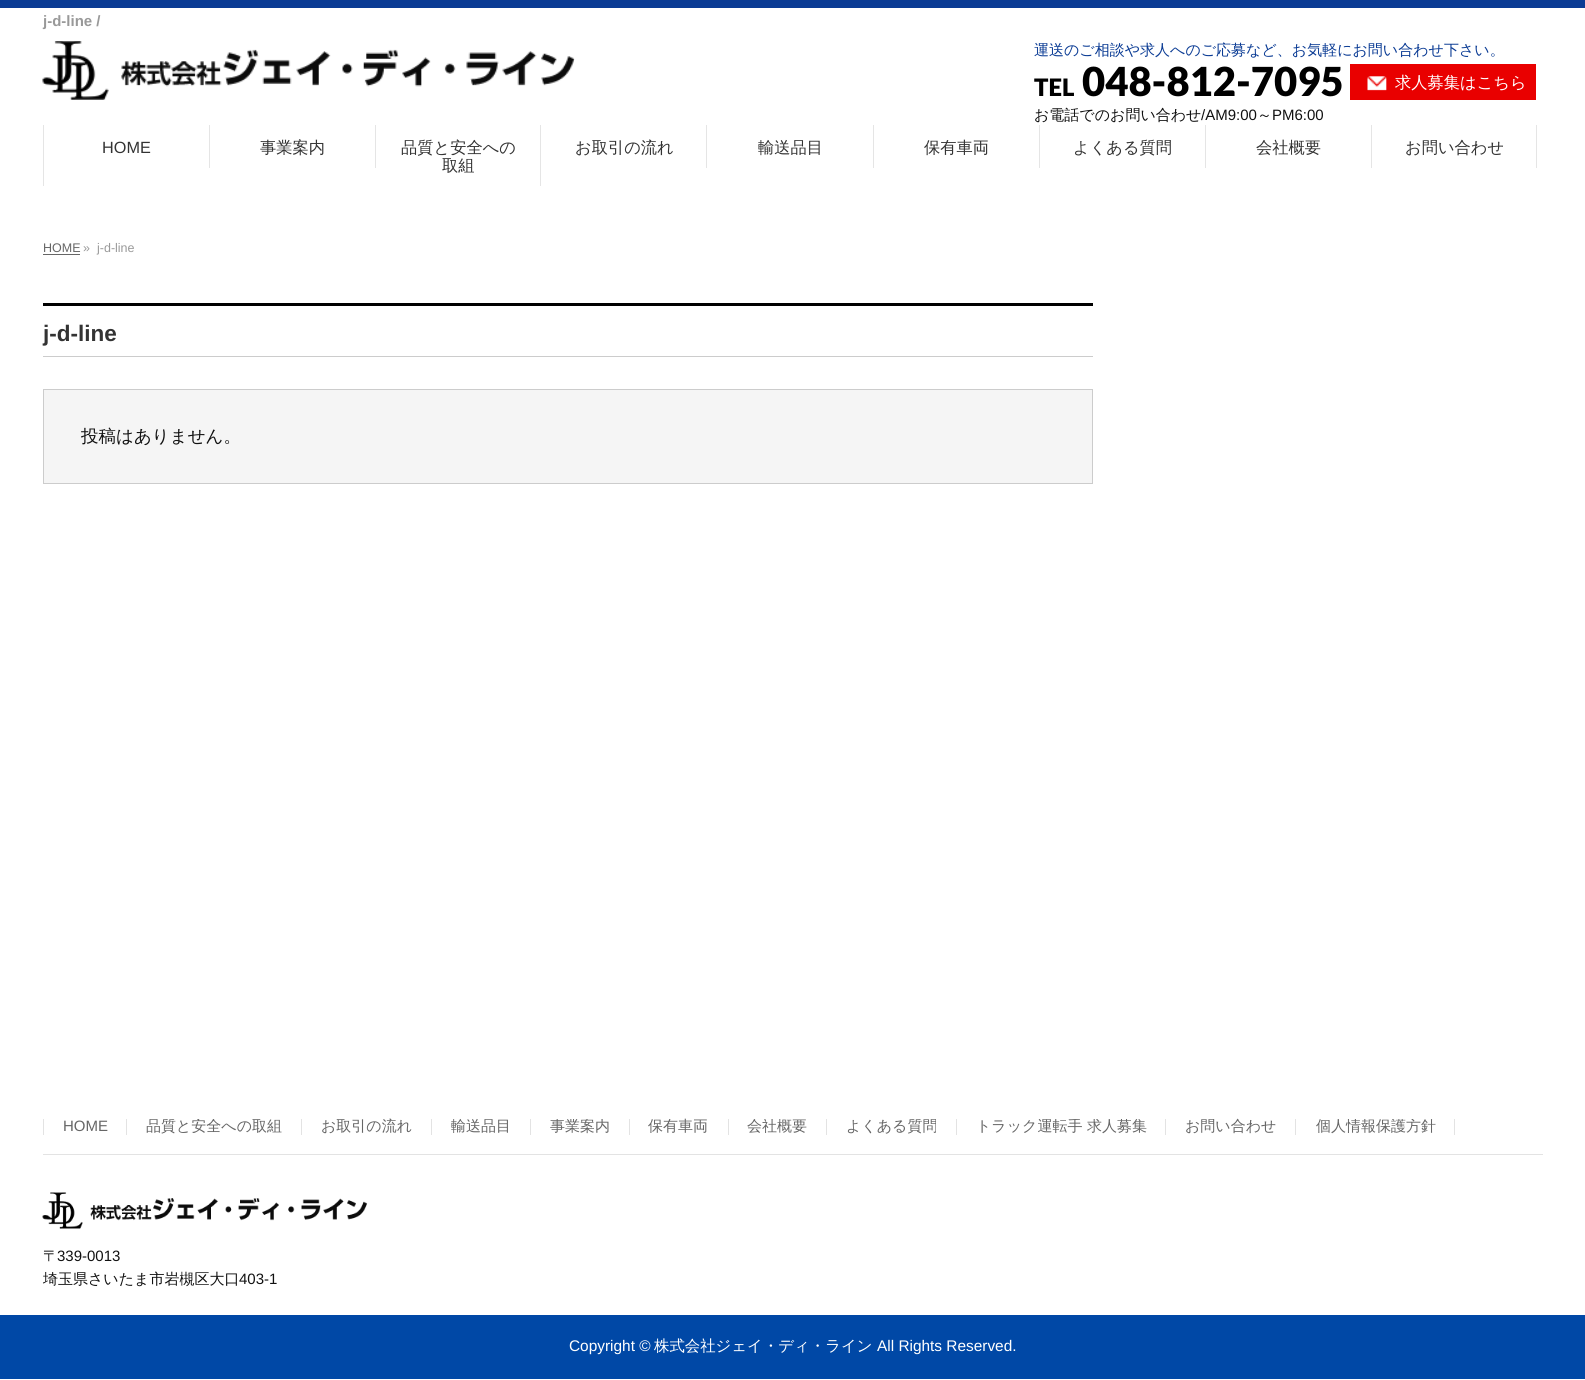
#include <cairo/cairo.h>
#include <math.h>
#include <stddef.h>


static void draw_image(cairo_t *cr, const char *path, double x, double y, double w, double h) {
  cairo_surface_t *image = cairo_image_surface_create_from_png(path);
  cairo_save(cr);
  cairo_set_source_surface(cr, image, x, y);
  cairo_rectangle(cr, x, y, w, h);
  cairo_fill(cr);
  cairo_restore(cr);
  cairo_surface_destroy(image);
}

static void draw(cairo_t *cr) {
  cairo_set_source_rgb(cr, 1, 1, 1);
  cairo_paint(cr);
  cairo_set_source_rgb(cr, 10 / 255.0, 59 / 255.0, 148 / 255.0);
  cairo_rectangle(cr, 0, 0, 1585, 8);
  cairo_fill(cr);
  draw_image(cr, "images/1.png", 42, 41, 533, 59);
  cairo_set_source_rgb(cr, 233 / 255.0, 0, 0);
  cairo_rectangle(cr, 1350, 64, 186, 36);
  cairo_fill(cr);
  draw_image(cr, "images/2.png", 1367, 76, 20, 15);
  cairo_set_source_rgb(cr, 229 / 255.0, 229 / 255.0, 229 / 255.0);
  cairo_rectangle(cr, 43, 125, 1, 61);
  cairo_fill(cr);
  cairo_rectangle(cr, 209, 125, 1, 43);
  cairo_fill(cr);
  cairo_rectangle(cr, 375, 125, 1, 43);
  cairo_fill(cr);
  cairo_rectangle(cr, 540, 125, 1, 61);
  cairo_fill(cr);
  cairo_rectangle(cr, 706, 125, 1, 43);
  cairo_fill(cr);
  cairo_rectangle(cr, 873, 125, 1, 43);
  cairo_fill(cr);
  cairo_rectangle(cr, 1039, 125, 1, 43);
  cairo_fill(cr);
  cairo_rectangle(cr, 1205, 125, 1, 43);
  cairo_fill(cr);
  cairo_rectangle(cr, 1371, 125, 1, 43);
  cairo_fill(cr);
  cairo_rectangle(cr, 1536, 125, 1, 43);
  cairo_fill(cr);
  cairo_set_source_rgb(cr, 102 / 255.0, 102 / 255.0, 102 / 255.0);
  cairo_rectangle(cr, 43, 254, 37, 1);
  cairo_fill(cr);
  cairo_set_source_rgb(cr, 0, 0, 0);
  cairo_rectangle(cr, 43, 303, 1050, 3);
  cairo_fill(cr);
  cairo_set_source_rgb(cr, 204 / 255.0, 204 / 255.0, 204 / 255.0);
  cairo_rectangle(cr, 43, 356, 1050, 1);
  cairo_fill(cr);
  cairo_set_source_rgb(cr, 245 / 255.0, 245 / 255.0, 245 / 255.0);
  cairo_rectangle(cr, 43.5, 389.5, 1049, 94);
  cairo_fill_preserve(cr);
  cairo_set_source_rgb(cr, 204 / 255.0, 204 / 255.0, 204 / 255.0);
  cairo_set_line_width(cr, 1);
  cairo_stroke(cr);
  cairo_set_source_rgb(cr, 227 / 255.0, 227 / 255.0, 227 / 255.0);
  cairo_rectangle(cr, 43, 1154, 1500, 1);
  cairo_fill(cr);
  cairo_rectangle(cr, 43, 1119, 1, 16);
  cairo_fill(cr);
  cairo_rectangle(cr, 126, 1119, 1, 16);
  cairo_fill(cr);
  cairo_rectangle(cr, 301, 1119, 1, 16);
  cairo_fill(cr);
  cairo_rectangle(cr, 431, 1119, 1, 16);
  cairo_fill(cr);
  cairo_rectangle(cr, 530, 1119, 1, 16);
  cairo_fill(cr);
  cairo_rectangle(cr, 629, 1119, 1, 16);
  cairo_fill(cr);
  cairo_rectangle(cr, 728, 1119, 1, 16);
  cairo_fill(cr);
  cairo_rectangle(cr, 826, 1119, 1, 16);
  cairo_fill(cr);
  cairo_rectangle(cr, 956, 1119, 1, 16);
  cairo_fill(cr);
  cairo_rectangle(cr, 1165, 1119, 1, 16);
  cairo_fill(cr);
  cairo_rectangle(cr, 1295, 1119, 1, 16);
  cairo_fill(cr);
  cairo_rectangle(cr, 1454, 1119, 1, 16);
  cairo_fill(cr);
  draw_image(cr, "images/3.png", 42, 1192, 326, 37);
  cairo_set_source_rgb(cr, 0, 72 / 255.0, 166 / 255.0);
  cairo_rectangle(cr, 0, 1315, 1585, 64);
  cairo_fill(cr);
  cairo_select_font_face(cr, "Liberation Sans", CAIRO_FONT_SLANT_NORMAL, CAIRO_FONT_WEIGHT_BOLD);
  cairo_set_font_size(cr, 15);
  cairo_set_source_rgb(cr, 153 / 255.0, 153 / 255.0, 153 / 255.0);
  cairo_move_to(cr, 43, 26);
  cairo_show_text(cr, "j-d-line /");
  cairo_select_font_face(cr, "WenQuanYi Zen Hei Medium", CAIRO_FONT_SLANT_NORMAL, CAIRO_FONT_WEIGHT_NORMAL);
  cairo_set_source_rgb(cr, 10 / 255.0, 59 / 255.0, 148 / 255.0);
  cairo_move_to(cr, 1034, 55);
  cairo_show_text(cr, "運送のご相談や求人へのご応募など、お気軽にお問い合わせ下さい。");
  cairo_select_font_face(cr, "Lato Black", CAIRO_FONT_SLANT_NORMAL, CAIRO_FONT_WEIGHT_NORMAL);
  cairo_set_font_size(cr, 24);
  cairo_set_source_rgb(cr, 0, 0, 0);
  cairo_move_to(cr, 1034, 96);
  cairo_show_text(cr, "TEL");
  cairo_set_font_size(cr, 40);
  cairo_move_to(cr, 1082, 96);
  cairo_show_text(cr, "048-812-7095");
  cairo_select_font_face(cr, "WenQuanYi Zen Hei Medium", CAIRO_FONT_SLANT_NORMAL, CAIRO_FONT_WEIGHT_NORMAL);
  cairo_set_font_size(cr, 16.25);
  cairo_set_source_rgb(cr, 1, 1, 1);
  cairo_move_to(cr, 1395, 88);
  cairo_show_text(cr, "求人募集はこちら");
  cairo_set_font_size(cr, 15);
  cairo_set_source_rgb(cr, 17 / 255.0, 17 / 255.0, 17 / 255.0);
  cairo_move_to(cr, 1034, 120);
  cairo_show_text(cr, "お電話でのお問い合わせ");
  cairo_select_font_face(cr, "Liberation Sans", CAIRO_FONT_SLANT_NORMAL, CAIRO_FONT_WEIGHT_NORMAL);
  cairo_move_to(cr, 1201, 120);
  cairo_show_text(cr, "/AM9:00");
  cairo_select_font_face(cr, "WenQuanYi Zen Hei Medium", CAIRO_FONT_SLANT_NORMAL, CAIRO_FONT_WEIGHT_NORMAL);
  cairo_move_to(cr, 1257, 120);
  cairo_show_text(cr, "～");
  cairo_select_font_face(cr, "Liberation Sans", CAIRO_FONT_SLANT_NORMAL, CAIRO_FONT_WEIGHT_NORMAL);
  cairo_move_to(cr, 1272, 120);
  cairo_show_text(cr, "PM6:00");
  cairo_set_font_size(cr, 16.25);
  cairo_set_source_rgb(cr, 51 / 255.0, 51 / 255.0, 51 / 255.0);
  cairo_move_to(cr, 102, 153);
  cairo_show_text(cr, "HOME");
  cairo_select_font_face(cr, "WenQuanYi Zen Hei Medium", CAIRO_FONT_SLANT_NORMAL, CAIRO_FONT_WEIGHT_NORMAL);
  cairo_move_to(cr, 260, 153);
  cairo_show_text(cr, "事業案内");
  cairo_move_to(cr, 401, 153);
  cairo_show_text(cr, "品質と安全への");
  cairo_move_to(cr, 442, 171);
  cairo_show_text(cr, "取組");
  cairo_move_to(cr, 575, 153);
  cairo_show_text(cr, "お取引の流れ");
  cairo_move_to(cr, 758, 153);
  cairo_show_text(cr, "輸送品目");
  cairo_move_to(cr, 924, 153);
  cairo_show_text(cr, "保有車両");
  cairo_move_to(cr, 1073, 153);
  cairo_show_text(cr, "よくある質問");
  cairo_move_to(cr, 1256, 153);
  cairo_show_text(cr, "会社概要");
  cairo_move_to(cr, 1405, 153);
  cairo_show_text(cr, "お問い合わせ");
  cairo_select_font_face(cr, "Liberation Sans", CAIRO_FONT_SLANT_NORMAL, CAIRO_FONT_WEIGHT_NORMAL);
  cairo_set_font_size(cr, 12.5);
  cairo_set_source_rgb(cr, 102 / 255.0, 102 / 255.0, 102 / 255.0);
  cairo_move_to(cr, 43, 252);
  cairo_show_text(cr, "HOME");
  cairo_set_source_rgb(cr, 153 / 255.0, 153 / 255.0, 153 / 255.0);
  cairo_move_to(cr, 83, 252);
  cairo_show_text(cr, "»");
  cairo_move_to(cr, 97, 252);
  cairo_show_text(cr, "j-d-line");
  cairo_select_font_face(cr, "Liberation Sans", CAIRO_FONT_SLANT_NORMAL, CAIRO_FONT_WEIGHT_BOLD);
  cairo_set_font_size(cr, 22.5);
  cairo_set_source_rgb(cr, 51 / 255.0, 51 / 255.0, 51 / 255.0);
  cairo_move_to(cr, 43, 341);
  cairo_show_text(cr, "j-d-line");
  cairo_select_font_face(cr, "WenQuanYi Zen Hei Medium", CAIRO_FONT_SLANT_NORMAL, CAIRO_FONT_WEIGHT_NORMAL);
  cairo_set_font_size(cr, 17.5);
  cairo_set_source_rgb(cr, 17 / 255.0, 17 / 255.0, 17 / 255.0);
  cairo_move_to(cr, 81, 442);
  cairo_show_text(cr, "投稿はありません。");
  cairo_select_font_face(cr, "Liberation Sans", CAIRO_FONT_SLANT_NORMAL, CAIRO_FONT_WEIGHT_NORMAL);
  cairo_set_font_size(cr, 15);
  cairo_set_source_rgb(cr, 102 / 255.0, 102 / 255.0, 102 / 255.0);
  cairo_move_to(cr, 63, 1131);
  cairo_show_text(cr, "HOME");
  cairo_save(cr);
  cairo_rectangle(cr, 44, 1119, 1499, 16);
  cairo_clip(cr);
  cairo_select_font_face(cr, "WenQuanYi Zen Hei Medium", CAIRO_FONT_SLANT_NORMAL, CAIRO_FONT_WEIGHT_NORMAL);
  cairo_move_to(cr, 146, 1131);
  cairo_show_text(cr, "品質と安全への取組");
  cairo_restore(cr);
  cairo_select_font_face(cr, "WenQuanYi Zen Hei Medium", CAIRO_FONT_SLANT_NORMAL, CAIRO_FONT_WEIGHT_NORMAL);
  cairo_move_to(cr, 321, 1131);
  cairo_show_text(cr, "お取引の流れ");
  cairo_move_to(cr, 451, 1131);
  cairo_show_text(cr, "輸送品目");
  cairo_save(cr);
  cairo_rectangle(cr, 44, 1119, 1499, 16);
  cairo_clip(cr);
  cairo_move_to(cr, 550, 1131);
  cairo_show_text(cr, "事業案内");
  cairo_restore(cr);
  cairo_move_to(cr, 648, 1131);
  cairo_show_text(cr, "保有車両");
  cairo_save(cr);
  cairo_rectangle(cr, 44, 1119, 1499, 16);
  cairo_clip(cr);
  cairo_move_to(cr, 747, 1131);
  cairo_show_text(cr, "会社概要");
  cairo_move_to(cr, 846, 1131);
  cairo_show_text(cr, "よくある質問");
  cairo_move_to(cr, 976, 1131);
  cairo_show_text(cr, "トラック運転手 求人募集");
  cairo_restore(cr);
  cairo_move_to(cr, 1185, 1131);
  cairo_show_text(cr, "お問い合わせ");
  cairo_save(cr);
  cairo_rectangle(cr, 44, 1119, 1499, 16);
  cairo_clip(cr);
  cairo_move_to(cr, 1316, 1131);
  cairo_show_text(cr, "個人情報保護方針");
  cairo_restore(cr);
  cairo_set_source_rgb(cr, 17 / 255.0, 17 / 255.0, 17 / 255.0);
  cairo_move_to(cr, 43, 1261);
  cairo_show_text(cr, "〒");
  cairo_select_font_face(cr, "Liberation Sans", CAIRO_FONT_SLANT_NORMAL, CAIRO_FONT_WEIGHT_NORMAL);
  cairo_move_to(cr, 57, 1261);
  cairo_show_text(cr, "339-0013");
  cairo_select_font_face(cr, "WenQuanYi Zen Hei Medium", CAIRO_FONT_SLANT_NORMAL, CAIRO_FONT_WEIGHT_NORMAL);
  cairo_move_to(cr, 43, 1284);
  cairo_show_text(cr, "埼玉県さいたま市岩槻区大口");
  cairo_select_font_face(cr, "Liberation Sans", CAIRO_FONT_SLANT_NORMAL, CAIRO_FONT_WEIGHT_NORMAL);
  cairo_move_to(cr, 239, 1284);
  cairo_show_text(cr, "403-1");
  cairo_set_font_size(cr, 15.4);
  cairo_set_source_rgb(cr, 1, 1, 1);
  cairo_move_to(cr, 569, 1351);
  cairo_show_text(cr, "Copyright ©");
  cairo_select_font_face(cr, "WenQuanYi Zen Hei Medium", CAIRO_FONT_SLANT_NORMAL, CAIRO_FONT_WEIGHT_NORMAL);
  cairo_move_to(cr, 654, 1351);
  cairo_show_text(cr, "株式会社ジェイ・ディ・ライン");
  cairo_select_font_face(cr, "Liberation Sans", CAIRO_FONT_SLANT_NORMAL, CAIRO_FONT_WEIGHT_NORMAL);
  cairo_move_to(cr, 877, 1351);
  cairo_show_text(cr, "All Rights Reserved.");
}

int main(void) {
  cairo_surface_t *surface = cairo_image_surface_create(CAIRO_FORMAT_RGB24, 1585, 1380);
  cairo_t *cr = cairo_create(surface);
  cairo_font_options_t *options = cairo_font_options_create();
  cairo_font_options_set_hint_metrics(options, CAIRO_HINT_METRICS_OFF);
  cairo_font_options_set_hint_style(options, CAIRO_HINT_STYLE_NONE);
  cairo_set_font_options(cr, options);
  cairo_set_miter_limit(cr, 4);
  draw(cr);
  cairo_surface_write_to_png(surface, "out.png");
  cairo_font_options_destroy(options);
  cairo_destroy(cr);
  cairo_surface_destroy(surface);
  return 0;
}
